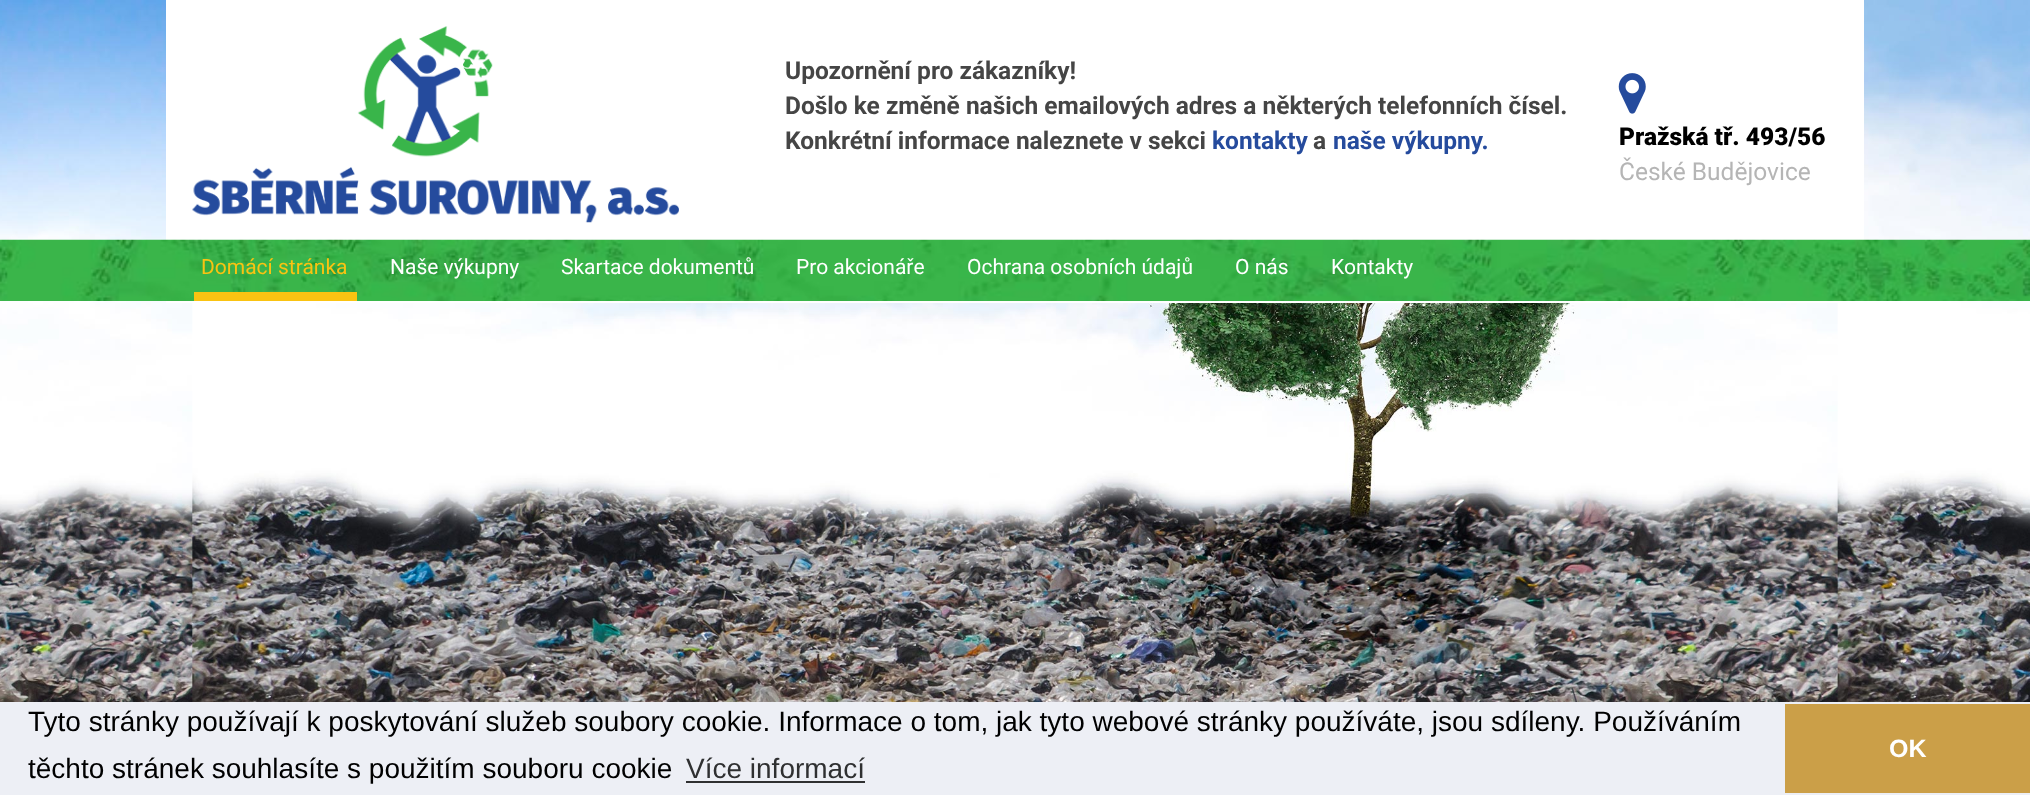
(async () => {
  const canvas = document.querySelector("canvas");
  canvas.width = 2030;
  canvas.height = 795;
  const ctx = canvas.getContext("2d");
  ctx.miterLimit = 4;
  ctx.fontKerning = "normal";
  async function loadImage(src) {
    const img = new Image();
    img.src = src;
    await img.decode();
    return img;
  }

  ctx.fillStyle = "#ffffff";
  ctx.fillRect(0, 0, 2030, 795);
  ctx.drawImage(await loadImage("img/1.png"), 0, 0, 2030, 702);
  ctx.fillRect(166, 0, 1698, 240);
  ctx.drawImage(await loadImage("img/2.png"), 192, 26, 487, 197);
  ctx.drawImage(await loadImage("img/3.png"), 1618, 73, 28, 41);
  ctx.drawImage(await loadImage("img/4.png"), 0, 239, 2030, 62);
  for (const [x, y, w, h, color] of [
    [194, 292, 163, 9, "#fac312"],
    [166, 301, 1672, 2, "#ffffff"],
    [0, 702, 2030, 93, "#edeff5"],
    [686, 781, 179, 2, "#2f3031"],
    [1785, 704, 245, 89, "#cb9f48"],
  ]) {
    ctx.fillStyle = color;
    ctx.fillRect(x, y, w, h);
  }
  ctx.font = "bold 24.5px Roboto";
  ctx.fillStyle = "#454545";
  for (const [text, x, y] of [
    ["Upozornění pro zákazníky!", 785, 79],
    ["Došlo ke změně našich emailových adres a některých telefonních čísel.", 785, 114],
    ["Konkrétní informace naleznete v sekci", 785, 149],
  ]) {
    ctx.fillText(text, x, y);
  }
  ctx.fillStyle = "#254b9d";
  ctx.fillText("kontakty", 1212, 149);
  ctx.fillStyle = "#454545";
  ctx.fillText("a", 1313, 149);
  ctx.fillStyle = "#254b9d";
  ctx.fillText("naše výkupny.", 1333, 149);
  ctx.font = "900 24.5px Roboto";
  ctx.fillStyle = "#000000";
  ctx.fillText("Pražská tř. 493/56", 1619, 145);
  ctx.font = "24.5px Roboto";
  ctx.fillStyle = "#b5b5b5";
  ctx.fillText("České Budějovice", 1619, 180);
  ctx.font = "21px Roboto";
  ctx.fillStyle = "#fac312";
  ctx.fillText("Domácí stránka", 201, 274);
  ctx.fillStyle = "#ffffff";
  for (const [text, x, y] of [
    ["Naše výkupny", 390, 274],
    ["Skartace dokumentů", 561, 274],
    ["Pro akcionáře", 796, 274],
    ["Ochrana osobních údajů", 967, 274],
    ["O nás", 1235, 274],
    ["Kontakty", 1331, 274],
  ]) {
    ctx.fillText(text, x, y);
  }
  ctx.font = "28px Liberation Sans";
  ctx.fillStyle = "#000000";
  ctx.fillText("Tyto stránky používají k poskytování služeb soubory cookie. Informace o tom, jak tyto webové stránky používáte, jsou sdíleny. Používáním", 28, 731);
  ctx.fillText("těchto stránek souhlasíte s použitím souboru cookie", 28, 778);
  ctx.fillStyle = "#2f3031";
  ctx.fillText("Více informací", 686, 778);
  ctx.font = "bold 25px Liberation Sans";
  ctx.fillStyle = "#ffffff";
  ctx.fillText("OK", 1889, 757);
})();
